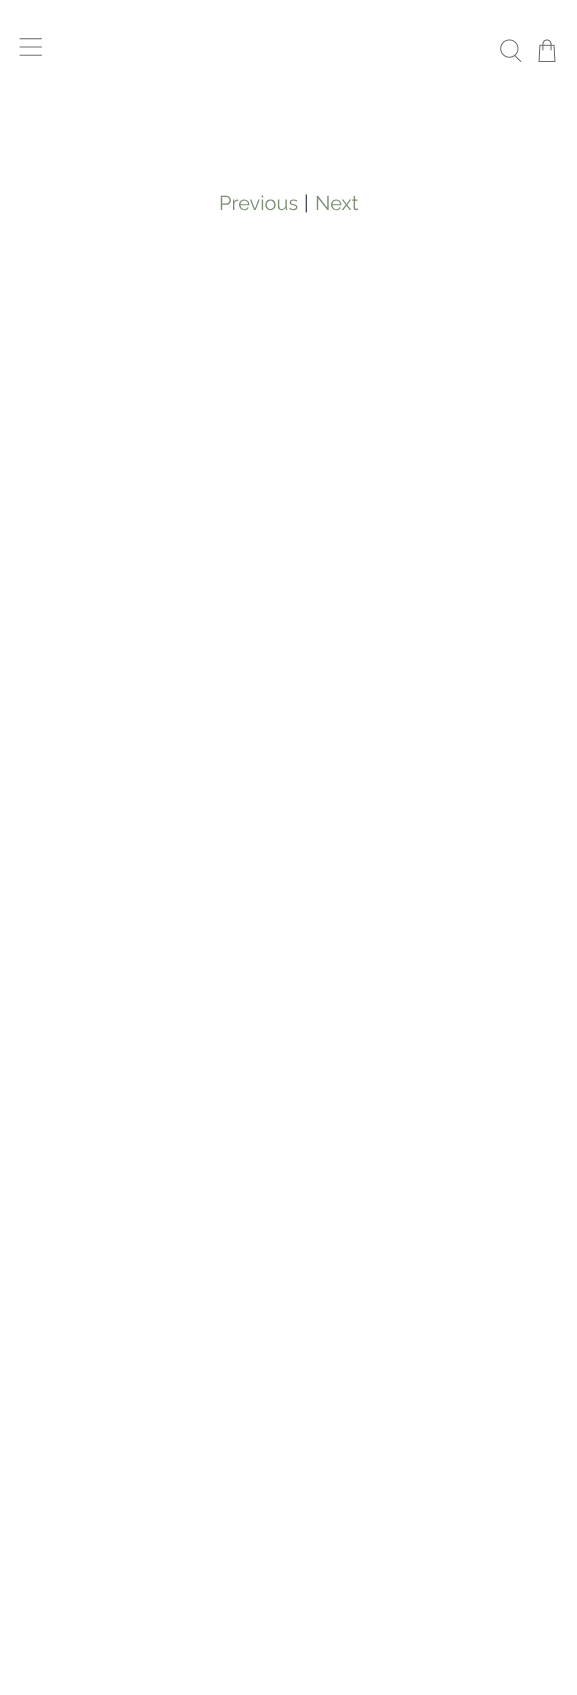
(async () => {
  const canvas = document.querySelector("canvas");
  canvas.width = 577;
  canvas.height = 1695;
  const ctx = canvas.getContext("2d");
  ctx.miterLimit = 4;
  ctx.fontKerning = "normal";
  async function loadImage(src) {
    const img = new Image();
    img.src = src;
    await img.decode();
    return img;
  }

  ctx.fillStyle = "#ffffff";
  ctx.fillRect(0, 0, 577, 1695);
  ctx.drawImage(await loadImage("img/1.png"), 19, 38, 23, 18);
  ctx.drawImage(await loadImage("img/2.png"), 500, 39, 22, 23);
  ctx.drawImage(await loadImage("img/3.png"), 538, 39, 18, 23);
  ctx.font = "20px Raleway";
  ctx.fillStyle = "#7b8f74";
  ctx.fillText("Previous", 219, 210);
  ctx.fillStyle = "#2f3942";
  ctx.fillText("|", 304, 210);
  ctx.fillStyle = "#7b8f74";
  ctx.fillText("Next", 315, 210);
})();
